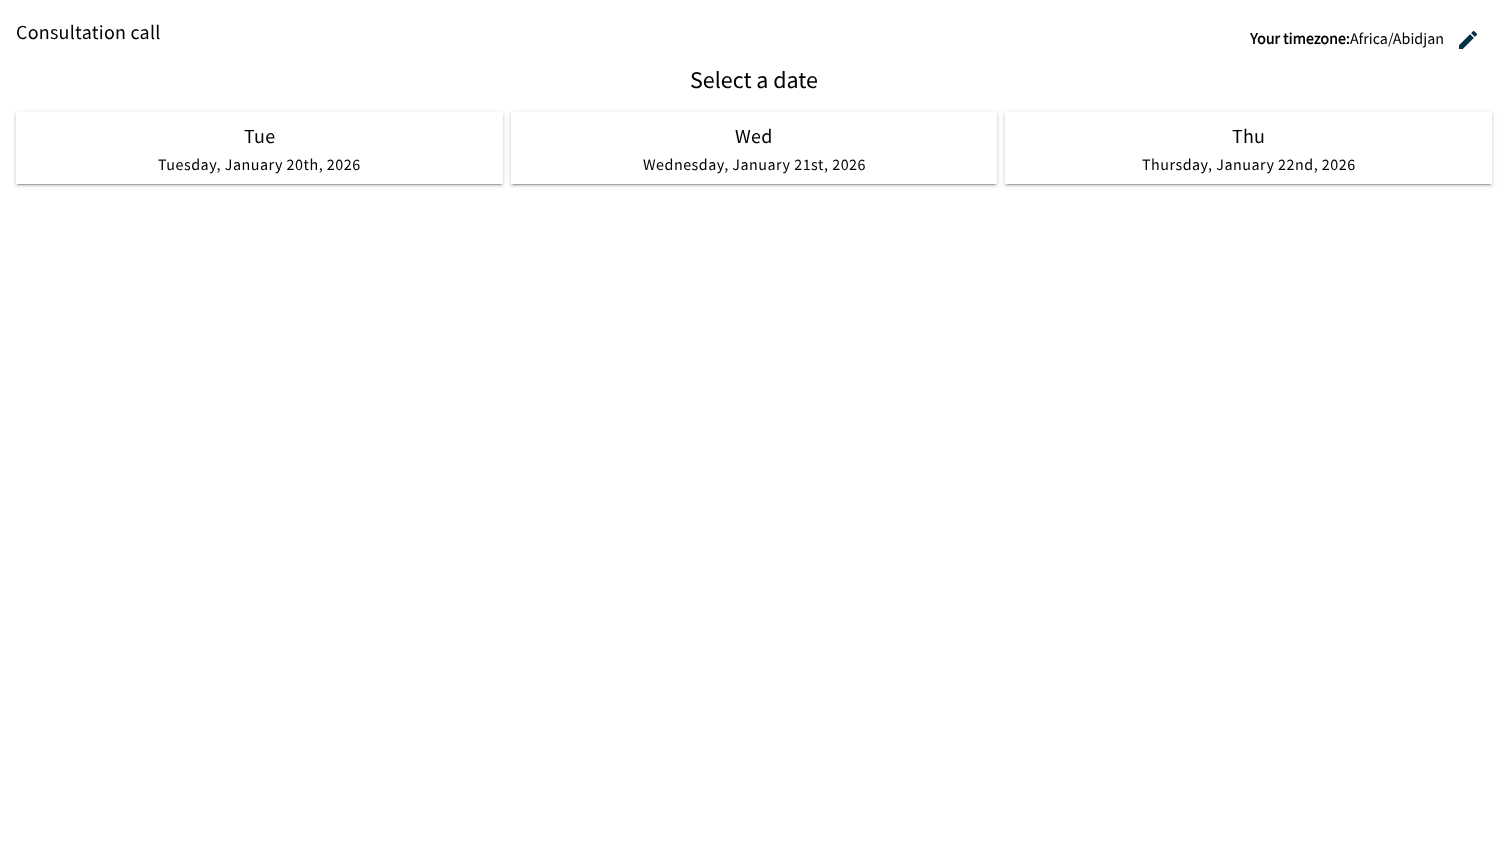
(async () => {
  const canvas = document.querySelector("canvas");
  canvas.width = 1508;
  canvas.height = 849;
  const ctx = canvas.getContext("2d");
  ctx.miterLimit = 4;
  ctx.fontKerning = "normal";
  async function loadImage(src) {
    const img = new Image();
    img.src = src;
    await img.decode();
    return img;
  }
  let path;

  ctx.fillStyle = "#ffffff";
  ctx.fillRect(0, 0, 1508, 849);
  ctx.drawImage(await loadImage("img/1.png"), 1459, 31, 18, 18);
  ctx.save();
  path = new Path2D("M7 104H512V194H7ZM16 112H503V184H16Z");
  ctx.clip(path, "evenodd");
  ctx.fillStyle = "rgba(0, 0, 0, 0.12)";
  ctx.filter = "blur(2.5px)";
  ctx.beginPath();
  ctx.rect(16, 113, 487, 72);
  ctx.fill();
  ctx.filter = "none";
  ctx.restore();
  ctx.save();
  path = new Path2D("M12 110H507V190H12ZM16 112H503V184H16Z");
  ctx.clip(path, "evenodd");
  ctx.fillStyle = "rgba(0, 0, 0, 0.14)";
  ctx.filter = "blur(1px)";
  ctx.beginPath();
  ctx.rect(16, 114, 487, 72);
  ctx.fill();
  ctx.filter = "none";
  ctx.restore();
  ctx.save();
  ctx.beginPath();
  ctx.rect(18, 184, 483, 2);
  ctx.clip();
  ctx.fillStyle = "rgba(0, 0, 0, 0.2)";
  ctx.filter = "blur(0.5px)";
  ctx.beginPath();
  ctx.rect(18, 117, 483, 68);
  ctx.fill();
  ctx.filter = "none";
  ctx.restore();
  ctx.save();
  path = new Path2D("M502 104H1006V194H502ZM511 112H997V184H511Z");
  ctx.clip(path, "evenodd");
  ctx.fillStyle = "rgba(0, 0, 0, 0.12)";
  ctx.filter = "blur(2.5px)";
  ctx.beginPath();
  ctx.rect(511, 113, 486, 72);
  ctx.fill();
  ctx.filter = "none";
  ctx.restore();
  ctx.save();
  path = new Path2D("M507 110H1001V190H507ZM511 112H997V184H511Z");
  ctx.clip(path, "evenodd");
  ctx.fillStyle = "rgba(0, 0, 0, 0.14)";
  ctx.filter = "blur(1px)";
  ctx.beginPath();
  ctx.rect(511, 114, 486, 72);
  ctx.fill();
  ctx.filter = "none";
  ctx.restore();
  ctx.save();
  ctx.beginPath();
  ctx.rect(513, 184, 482, 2);
  ctx.clip();
  ctx.fillStyle = "rgba(0, 0, 0, 0.2)";
  ctx.filter = "blur(0.5px)";
  ctx.beginPath();
  ctx.rect(513, 117, 482, 68);
  ctx.fill();
  ctx.filter = "none";
  ctx.restore();
  ctx.save();
  path = new Path2D("M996 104H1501V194H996ZM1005 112H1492V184H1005Z");
  ctx.clip(path, "evenodd");
  ctx.fillStyle = "rgba(0, 0, 0, 0.12)";
  ctx.filter = "blur(2.5px)";
  ctx.beginPath();
  ctx.rect(1005, 113, 487, 72);
  ctx.fill();
  ctx.filter = "none";
  ctx.restore();
  ctx.save();
  path = new Path2D("M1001 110H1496V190H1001ZM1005 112H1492V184H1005Z");
  ctx.clip(path, "evenodd");
  ctx.fillStyle = "rgba(0, 0, 0, 0.14)";
  ctx.filter = "blur(1px)";
  ctx.beginPath();
  ctx.rect(1005, 114, 487, 72);
  ctx.fill();
  ctx.filter = "none";
  ctx.restore();
  ctx.save();
  ctx.beginPath();
  ctx.rect(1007, 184, 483, 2);
  ctx.clip();
  ctx.fillStyle = "rgba(0, 0, 0, 0.2)";
  ctx.filter = "blur(0.5px)";
  ctx.beginPath();
  ctx.rect(1007, 117, 483, 68);
  ctx.fill();
  ctx.filter = "none";
  ctx.restore();
  ctx.letterSpacing = "0.25px";
  ctx.font = "20px Source Sans Pro";
  ctx.fillStyle = "#000000";
  ctx.fillText("Consultation call", 16, 39);
  ctx.letterSpacing = "0px";
  ctx.font = "bold 16px Source Sans Pro";
  ctx.fillText("Your timezone:", 1250, 44);
  ctx.font = "16px Source Sans Pro";
  ctx.fillText("Africa/Abidjan", 1350, 44);
  ctx.font = "24px Source Sans Pro";
  ctx.fillText("Select a date", 690, 88);
  ctx.letterSpacing = "0.25px";
  ctx.font = "20px Source Sans Pro";
  ctx.fillText("Tue", 244, 143);
  ctx.letterSpacing = "0.5px";
  ctx.font = "16px Source Sans Pro";
  ctx.fillText("Tuesday, January 20th, 2026", 158, 170);
  ctx.letterSpacing = "0.25px";
  ctx.font = "20px Source Sans Pro";
  ctx.fillText("Wed", 735, 143);
  ctx.letterSpacing = "0.5px";
  ctx.font = "16px Source Sans Pro";
  ctx.fillText("Wednesday, January 21st, 2026", 643, 170);
  ctx.letterSpacing = "0.25px";
  ctx.font = "20px Source Sans Pro";
  ctx.fillText("Thu", 1232, 143);
  ctx.letterSpacing = "0.5px";
  ctx.font = "16px Source Sans Pro";
  ctx.fillText("Thursday, January 22nd, 2026", 1142, 170);
})();
